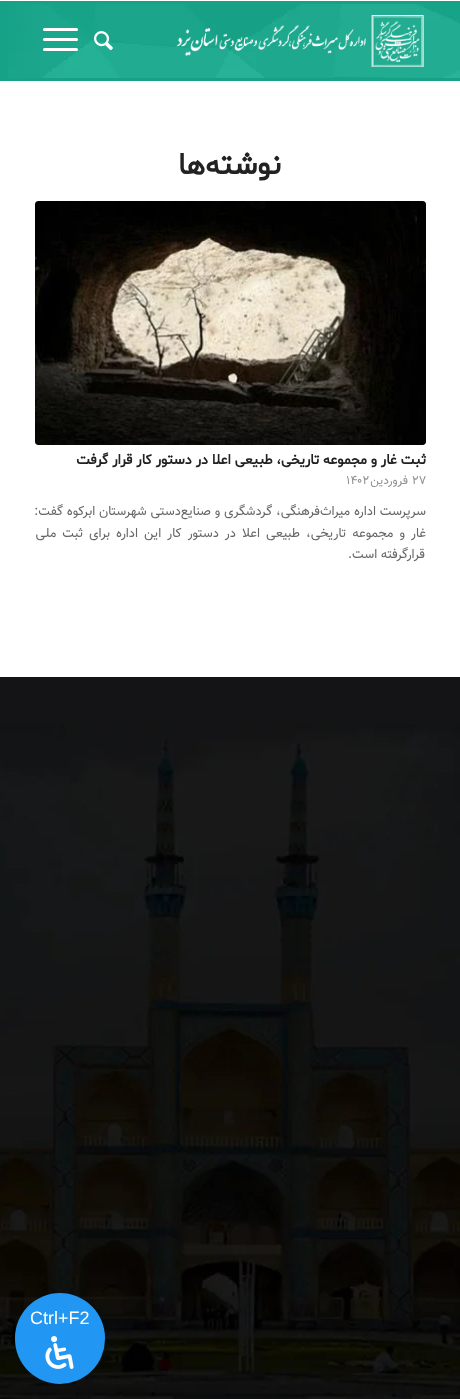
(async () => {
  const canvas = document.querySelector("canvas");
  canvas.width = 460;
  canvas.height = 1399;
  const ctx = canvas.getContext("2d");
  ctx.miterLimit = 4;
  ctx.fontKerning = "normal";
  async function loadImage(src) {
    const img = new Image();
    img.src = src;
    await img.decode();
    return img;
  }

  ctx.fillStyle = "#141416";
  ctx.fillRect(0, 0, 460, 1399);
  ctx.fillStyle = "#ffffff";
  ctx.fillRect(0, 0, 460, 1);
  ctx.fillStyle = "#16a286";
  ctx.fillRect(0, 1, 460, 80);
  ctx.drawImage(await loadImage("img/3.png"), 8, 4, 452, 74);
  ctx.drawImage(await loadImage("img/1.png"), 176, 15, 248, 52);
  ctx.drawImage(await loadImage("img/2.png"), 94, 31, 19, 20);
  ctx.fillStyle = "#ffffff";
  ctx.beginPath();
  ctx.roundRect(43, 38, 35, 3, 1.5);
  ctx.fill();
  ctx.beginPath();
  ctx.roundRect(43, 28, 35, 3, 1.5);
  ctx.fill();
  ctx.beginPath();
  ctx.roundRect(43, 48, 35, 3, 1.5);
  ctx.fill();
  ctx.fillRect(0, 81, 460, 596);
  ctx.fillStyle = "#fcfcfc";
  ctx.beginPath();
  ctx.roundRect(35, 201, 391, 244, 3);
  ctx.fill();
  ctx.drawImage(await loadImage("img/4.png"), 35, 201, 391, 244);
  ctx.drawImage(await loadImage("img/5.png"), 0, 724, 460, 675);
  ctx.fillStyle = "#2196f3";
  ctx.beginPath();
  ctx.roundRect(15, 1293, 90, 91, 45);
  ctx.fill();
  ctx.drawImage(await loadImage("img/6.png"), 45, 1336, 29, 33);
  ctx.direction = "rtl";
  ctx.font = "bold 30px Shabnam";
  ctx.fillStyle = "#222222";
  ctx.fillText("نوشته‌ها", 281, 174);
  ctx.font = "bold 14.3px Shabnam";
  ctx.fillText("ثبت غار و مجموعه تاریخی، طبیعی اعلا در دستور کار قرار گرفت", 426, 464);
  ctx.direction = "ltr";
  ctx.font = "12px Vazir";
  ctx.fillStyle = "#919191";
  ctx.fillText("۲۷", 412, 484);
  ctx.direction = "rtl";
  ctx.fillText("فروردین", 408, 484);
  ctx.direction = "ltr";
  ctx.fillText("۱۴۰۲", 346, 484);
  ctx.wordSpacing = "0.25px";
  ctx.direction = "rtl";
  ctx.font = "13px Vazir";
  ctx.fillStyle = "#666666";
  ctx.fillText("سرپرست اداره میراث‌فرهنگی، گردشگری و صنایع‌دستی شهرستان ابرکوه گفت:", 426, 515);
  ctx.wordSpacing = "2.5px";
  ctx.fillText("غار و مجموعه تاریخی، طبیعی اعلا در دستور کار این اداره برای ثبت ملی", 426, 537);
  ctx.wordSpacing = "0px";
  ctx.fillText("قرارگرفته است.", 425, 558);
  ctx.direction = "ltr";
  ctx.font = "18px Liberation Sans";
  ctx.fillStyle = "#ffffff";
  ctx.fillText("Ctrl+F2", 30, 1324);
})();
